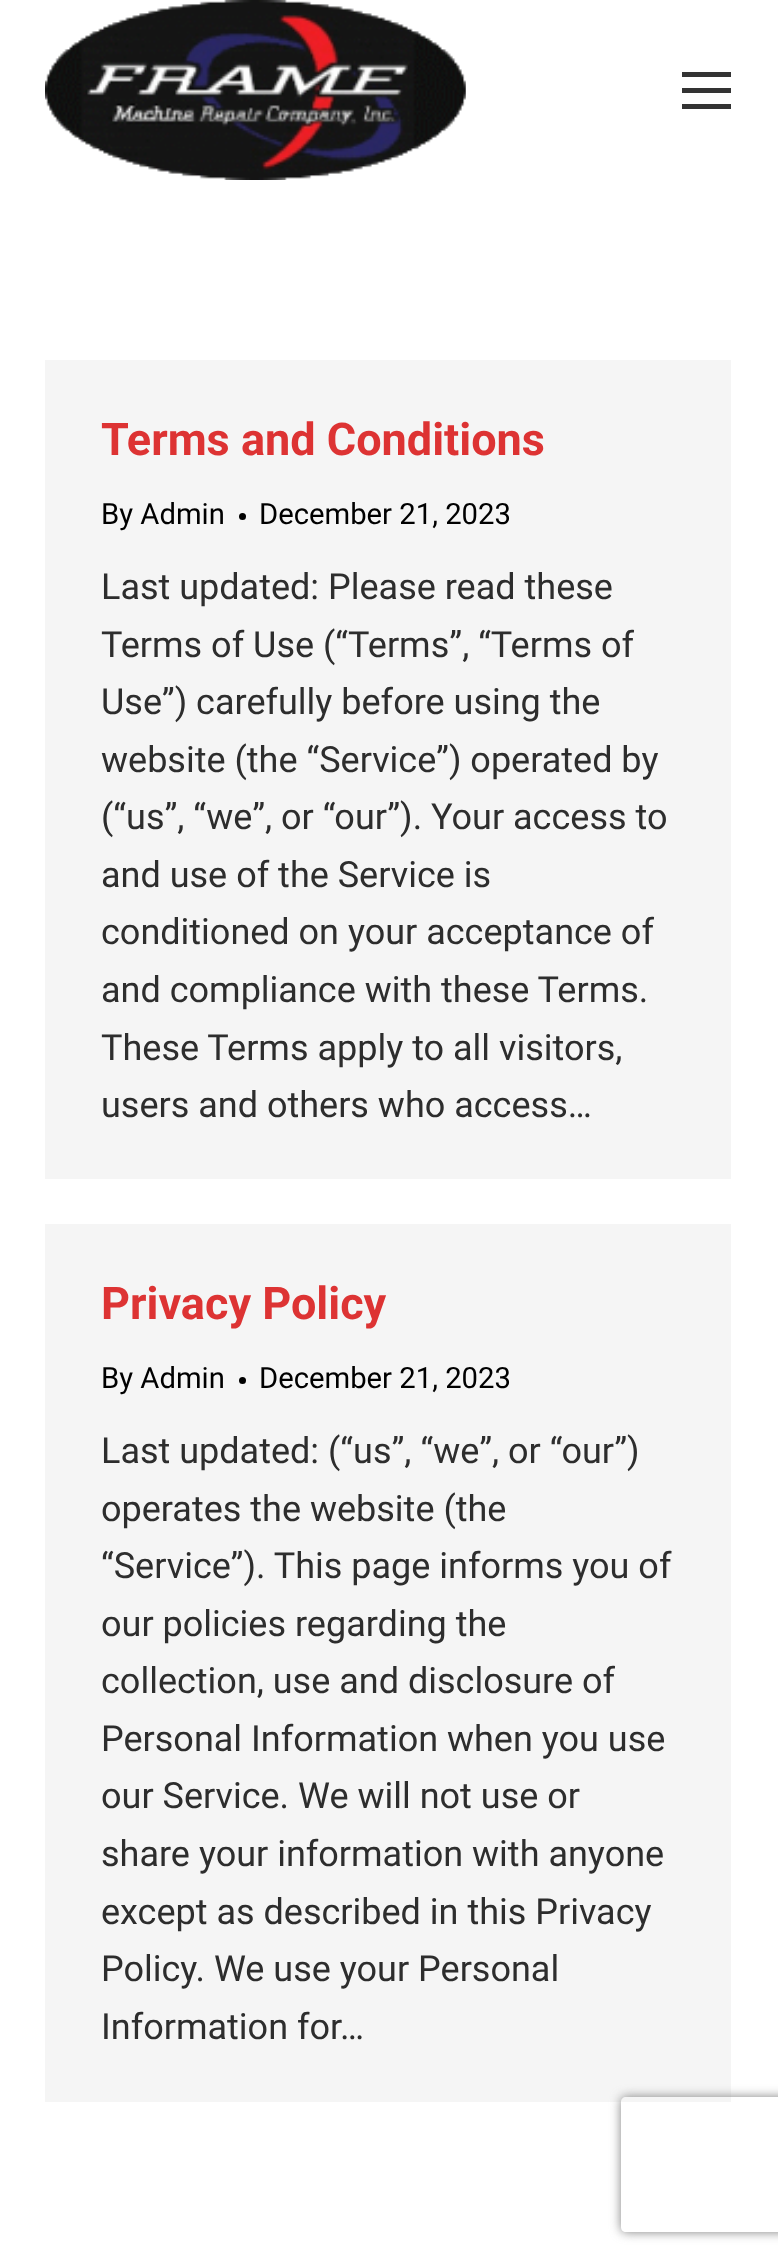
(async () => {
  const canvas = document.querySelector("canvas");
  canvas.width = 778;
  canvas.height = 2262;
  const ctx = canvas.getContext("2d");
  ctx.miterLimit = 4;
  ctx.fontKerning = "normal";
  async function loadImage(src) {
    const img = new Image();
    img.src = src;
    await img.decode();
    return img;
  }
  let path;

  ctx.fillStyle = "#ffffff";
  ctx.fillRect(0, 0, 778, 2262);
  ctx.drawImage(await loadImage("img/1.png"), 45, 0, 421, 180);
  for (const [x, y, w, h, color] of [
    [682, 72, 49, 5, "#333333"],
    [682, 88, 49, 5, "#333333"],
    [682, 104, 49, 5, "#333333"],
    [45, 360, 686, 819, "#f5f5f5"],
  ]) {
    ctx.fillStyle = color;
    ctx.fillRect(x, y, w, h);
  }
  ctx.fillStyle = "#000000";
  ctx.beginPath();
  ctx.arc(242.5, 516.5, 3.5, 0, Math.PI * 2);
  ctx.fill();
  ctx.fillStyle = "#f5f5f5";
  ctx.fillRect(45, 1224, 686, 878);
  ctx.fillStyle = "#000000";
  ctx.beginPath();
  ctx.arc(242.5, 1380.5, 3.5, 0, Math.PI * 2);
  ctx.fill();
  ctx.save();
  path = new Path2D("M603 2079H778V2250H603ZM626 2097H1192C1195 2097 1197 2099 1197 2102V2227C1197 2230 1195 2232 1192 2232H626C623 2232 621 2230 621 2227V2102C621 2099 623 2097 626 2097Z");
  ctx.clip(path, "evenodd");
  ctx.fillStyle = "#808080";
  ctx.filter = "blur(5.5px)";
  ctx.beginPath();
  ctx.roundRect(621, 2097, 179, 135, 5);
  ctx.fill();
  ctx.filter = "none";
  ctx.restore();
  ctx.font = "bold 45px Roboto";
  ctx.fillStyle = "#dd3333";
  ctx.fillText("Terms and Conditions", 101, 455);
  ctx.font = "29.25px Roboto";
  ctx.fillStyle = "#000000";
  ctx.fillText("By Admin", 101, 524);
  ctx.fillText("December 21, 2023", 259, 524);
  ctx.font = "36px Roboto";
  ctx.fillStyle = "#2d2d2d";
  for (const [text, x, y] of [
    ["Last updated: Please read these", 101, 599],
    ["Terms of Use (“Terms”, “Terms of", 101, 657],
    ["Use”) carefully before using the", 101, 714],
    ["website (the “Service”) operated by", 101, 772],
    ["(“us”, “we”, or “our”). Your access to", 101, 829],
    ["and use of the Service is", 101, 887],
    ["conditioned on your acceptance of", 101, 944],
    ["and compliance with these Terms.", 101, 1002],
    ["These Terms apply to all visitors,", 101, 1060],
    ["users and others who access…", 101, 1117],
  ]) {
    ctx.fillText(text, x, y);
  }
  ctx.font = "bold 45px Roboto";
  ctx.fillStyle = "#dd3333";
  ctx.fillText("Privacy Policy", 101, 1319);
  ctx.font = "29.25px Roboto";
  ctx.fillStyle = "#000000";
  ctx.fillText("By Admin", 101, 1388);
  ctx.fillText("December 21, 2023", 259, 1388);
  ctx.font = "36px Roboto";
  ctx.fillStyle = "#2d2d2d";
  for (const [text, x, y] of [
    ["Last updated: (“us”, “we”, or “our”)", 101, 1463],
    ["operates the website (the", 101, 1521],
    ["“Service”). This page informs you of", 101, 1578],
    ["our policies regarding the", 101, 1636],
    ["collection, use and disclosure of", 101, 1693],
    ["Personal Information when you use", 101, 1751],
    ["our Service. We will not use or", 101, 1808],
    ["share your information with anyone", 101, 1866],
    ["except as described in this Privacy", 101, 1924],
    ["Policy. We use your Personal", 101, 1981],
    ["Information for…", 101, 2039],
  ]) {
    ctx.fillText(text, x, y);
  }
})();
